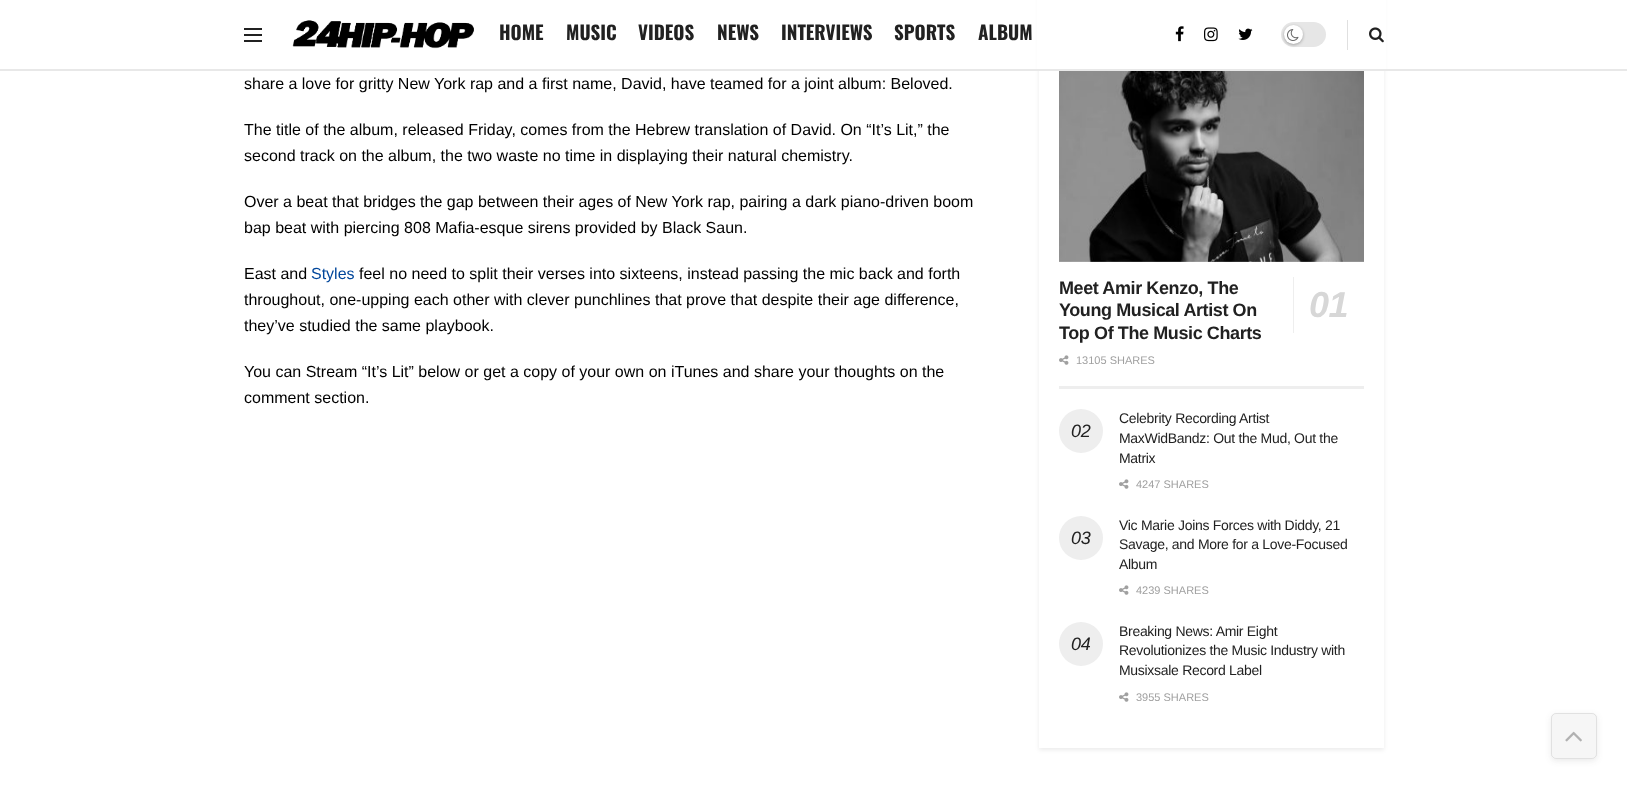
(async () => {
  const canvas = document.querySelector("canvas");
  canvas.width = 1627;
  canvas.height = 789;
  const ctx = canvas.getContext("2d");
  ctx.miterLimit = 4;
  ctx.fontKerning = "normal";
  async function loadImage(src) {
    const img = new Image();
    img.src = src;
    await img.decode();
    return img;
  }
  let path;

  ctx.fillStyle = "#ffffff";
  ctx.fillRect(0, 0, 1627, 789);
  ctx.save();
  path = new Path2D("M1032 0H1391V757H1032ZM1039-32H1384V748H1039Z");
  ctx.clip(path, "evenodd");
  ctx.fillStyle = "rgba(0, 0, 0, 0.08)";
  ctx.filter = "blur(2px)";
  ctx.beginPath();
  ctx.rect(1039, -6, 345, 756);
  ctx.fill();
  ctx.filter = "none";
  ctx.restore();
  for (const [x, y, w, h, color] of [
    [1037, 0, 349, 69, "#ffffff"],
    [0, 69, 1627, 2, "#e8e8e8"],
    [244, 28, 18, 2, "#212121"],
    [244, 34, 18, 2, "#212121"],
    [244, 40, 18, 2, "#212121"],
  ]) {
    ctx.fillStyle = color;
    ctx.fillRect(x, y, w, h);
  }
  ctx.drawImage(await loadImage("img/1.png"), 292, 20, 182, 29);
  ctx.drawImage(await loadImage("img/2.png"), 1175, 26, 9, 16);
  ctx.drawImage(await loadImage("img/3.png"), 1204, 27, 14, 15);
  ctx.drawImage(await loadImage("img/4.png"), 1238, 28, 15, 12);
  ctx.fillStyle = "#e6e6e6";
  ctx.beginPath();
  ctx.roundRect(1281, 22, 45, 25, 12.5);
  ctx.fill();
  ctx.fillStyle = "rgba(0, 0, 0, 0.3)";
  ctx.filter = "blur(1.5px)";
  ctx.beginPath();
  ctx.roundRect(1284, 26, 19, 19, 9.5);
  ctx.fill();
  ctx.filter = "none";
  ctx.fillStyle = "#ffffff";
  ctx.beginPath();
  ctx.arc(1293.5, 34.5, 9.5, 0, Math.PI * 2);
  ctx.fill();
  ctx.drawImage(await loadImage("img/5.png"), 1287, 29, 12, 12);
  ctx.fillStyle = "#e0e0e0";
  ctx.fillRect(1347, 20, 1, 30);
  ctx.drawImage(await loadImage("img/6.png"), 1369, 27, 15, 16);
  ctx.fillStyle = "#eeeeee";
  ctx.fillRect(1059, 386, 305, 3);
  ctx.drawImage(await loadImage("img/7.png"), 1059, 71, 305, 191);
  ctx.fillRect(1293, 277, 1, 56);
  ctx.drawImage(await loadImage("img/8.png"), 1059, 355, 10, 10);
  ctx.beginPath();
  ctx.arc(1081, 431, 22, 0, Math.PI * 2);
  ctx.fill();
  ctx.drawImage(await loadImage("img/8.png"), 1119, 479, 10, 10);
  ctx.beginPath();
  ctx.arc(1081, 538, 22, 0, Math.PI * 2);
  ctx.fill();
  ctx.drawImage(await loadImage("img/8.png"), 1119, 585, 10, 10);
  ctx.beginPath();
  ctx.arc(1081, 644, 22, 0, Math.PI * 2);
  ctx.fill();
  ctx.drawImage(await loadImage("img/8.png"), 1119, 692, 10, 10);
  ctx.save();
  path = new Path2D("M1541 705H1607V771H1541ZM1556 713H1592C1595 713 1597 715 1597 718V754C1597 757 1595 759 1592 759H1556C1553 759 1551 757 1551 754V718C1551 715 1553 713 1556 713Z");
  ctx.clip(path, "evenodd");
  ctx.fillStyle = "rgba(51, 51, 51, 0.1)";
  ctx.filter = "blur(3px)";
  ctx.beginPath();
  ctx.roundRect(1551, 715, 46, 46, 5);
  ctx.fill();
  ctx.filter = "none";
  ctx.restore();
  ctx.fillStyle = "rgba(195, 195, 195, 0.15)";
  ctx.beginPath();
  ctx.roundRect(1551, 713, 46, 46, 5);
  ctx.fill();
  ctx.beginPath();
  ctx.roundRect(1551.5, 713.5, 45, 45, 4.5);
  ctx.strokeStyle = "rgba(51, 51, 51, 0.11)";
  ctx.stroke();
  ctx.drawImage(await loadImage("img/9.png"), 1565, 731, 17, 11);
  ctx.font = "bold 19px Oswald";
  ctx.fillStyle = "#212121";
  for (const [text, x, y] of [
    ["HOME", 499, 40],
    ["MUSIC", 566, 40],
    ["VIDEOS", 638, 40],
    ["NEWS", 717, 40],
    ["INTERVIEWS", 781, 40],
    ["SPORTS", 894, 40],
    ["ALBUM", 978, 40],
  ]) {
    ctx.fillText(text, x, y);
  }
  ctx.font = "16px Liberation Sans";
  ctx.fillStyle = "#000000";
  for (const [text, x, y] of [
    ["share a love for gritty New York rap and a first name, David, have teamed for a joint album: Beloved.", 244, 89],
    ["The title of the album, released Friday, comes from the Hebrew translation of David. On “It’s Lit,” the", 244, 135],
    ["second track on the album, the two waste no time in displaying their natural chemistry.", 244, 161],
    ["Over a beat that bridges the gap between their ages of New York rap, pairing a dark piano-driven boom", 244, 207],
    ["bap beat with piercing 808 Mafia-esque sirens provided by Black Saun.", 244, 233],
    ["East and", 244, 279],
  ]) {
    ctx.fillText(text, x, y);
  }
  ctx.fillStyle = "#00469b";
  ctx.fillText("Styles", 311, 279);
  ctx.fillStyle = "#000000";
  for (const [text, x, y] of [
    ["feel no need to split their verses into sixteens, instead passing the mic back and forth", 359, 279],
    ["throughout, one-upping each other with clever punchlines that prove that despite their age difference,", 244, 305],
    ["they’ve studied the same playbook.", 244, 331],
    ["You can Stream “It’s Lit” below or get a copy of your own on iTunes and share your thoughts on the", 244, 377],
    ["comment section.", 244, 403],
  ]) {
    ctx.fillText(text, x, y);
  }
  ctx.letterSpacing = "-0.4px";
  ctx.font = "bold 18px Liberation Sans";
  ctx.fillStyle = "#212121";
  ctx.fillText("Meet Amir Kenzo, The", 1059, 294);
  ctx.fillText("Young Musical Artist On", 1059, 316);
  ctx.font = "italic bold 36px Liberation Sans";
  ctx.fillStyle = "#d7d7d7";
  ctx.fillText("01", 1309, 317);
  ctx.font = "bold 18px Liberation Sans";
  ctx.fillStyle = "#212121";
  ctx.fillText("Top Of The Music Charts", 1059, 339);
  ctx.letterSpacing = "0px";
  ctx.font = "11px Liberation Sans";
  ctx.fillStyle = "#a0a0a0";
  ctx.fillText("13105 SHARES", 1076, 364);
  ctx.letterSpacing = "-0.3px";
  ctx.font = "14px Liberation Sans";
  ctx.fillStyle = "#212121";
  ctx.fillText("Celebrity Recording Artist", 1119, 423);
  ctx.font = "italic 18px Liberation Sans";
  ctx.fillText("02", 1071, 437);
  ctx.font = "14px Liberation Sans";
  ctx.fillText("MaxWidBandz: Out the Mud, Out the", 1119, 443);
  ctx.fillText("Matrix", 1119, 463);
  ctx.letterSpacing = "0px";
  ctx.font = "11px Liberation Sans";
  ctx.fillStyle = "#a0a0a0";
  ctx.fillText("4247 SHARES", 1136, 488);
  ctx.letterSpacing = "-0.3px";
  ctx.font = "14px Liberation Sans";
  ctx.fillStyle = "#212121";
  ctx.fillText("Vic Marie Joins Forces with Diddy, 21", 1119, 530);
  ctx.font = "italic 18px Liberation Sans";
  ctx.fillText("03", 1071, 544);
  ctx.font = "14px Liberation Sans";
  ctx.fillText("Savage, and More for a Love-Focused", 1119, 549);
  ctx.fillText("Album", 1119, 569);
  ctx.letterSpacing = "0px";
  ctx.font = "11px Liberation Sans";
  ctx.fillStyle = "#a0a0a0";
  ctx.fillText("4239 SHARES", 1136, 594);
  ctx.letterSpacing = "-0.3px";
  ctx.font = "14px Liberation Sans";
  ctx.fillStyle = "#212121";
  ctx.fillText("Breaking News: Amir Eight", 1119, 636);
  ctx.font = "italic 18px Liberation Sans";
  ctx.fillText("04", 1071, 650);
  ctx.font = "14px Liberation Sans";
  ctx.fillText("Revolutionizes the Music Industry with", 1119, 655);
  ctx.fillText("Musixsale Record Label", 1119, 675);
  ctx.letterSpacing = "0px";
  ctx.font = "11px Liberation Sans";
  ctx.fillStyle = "#a0a0a0";
  ctx.fillText("3955 SHARES", 1136, 701);
})();
